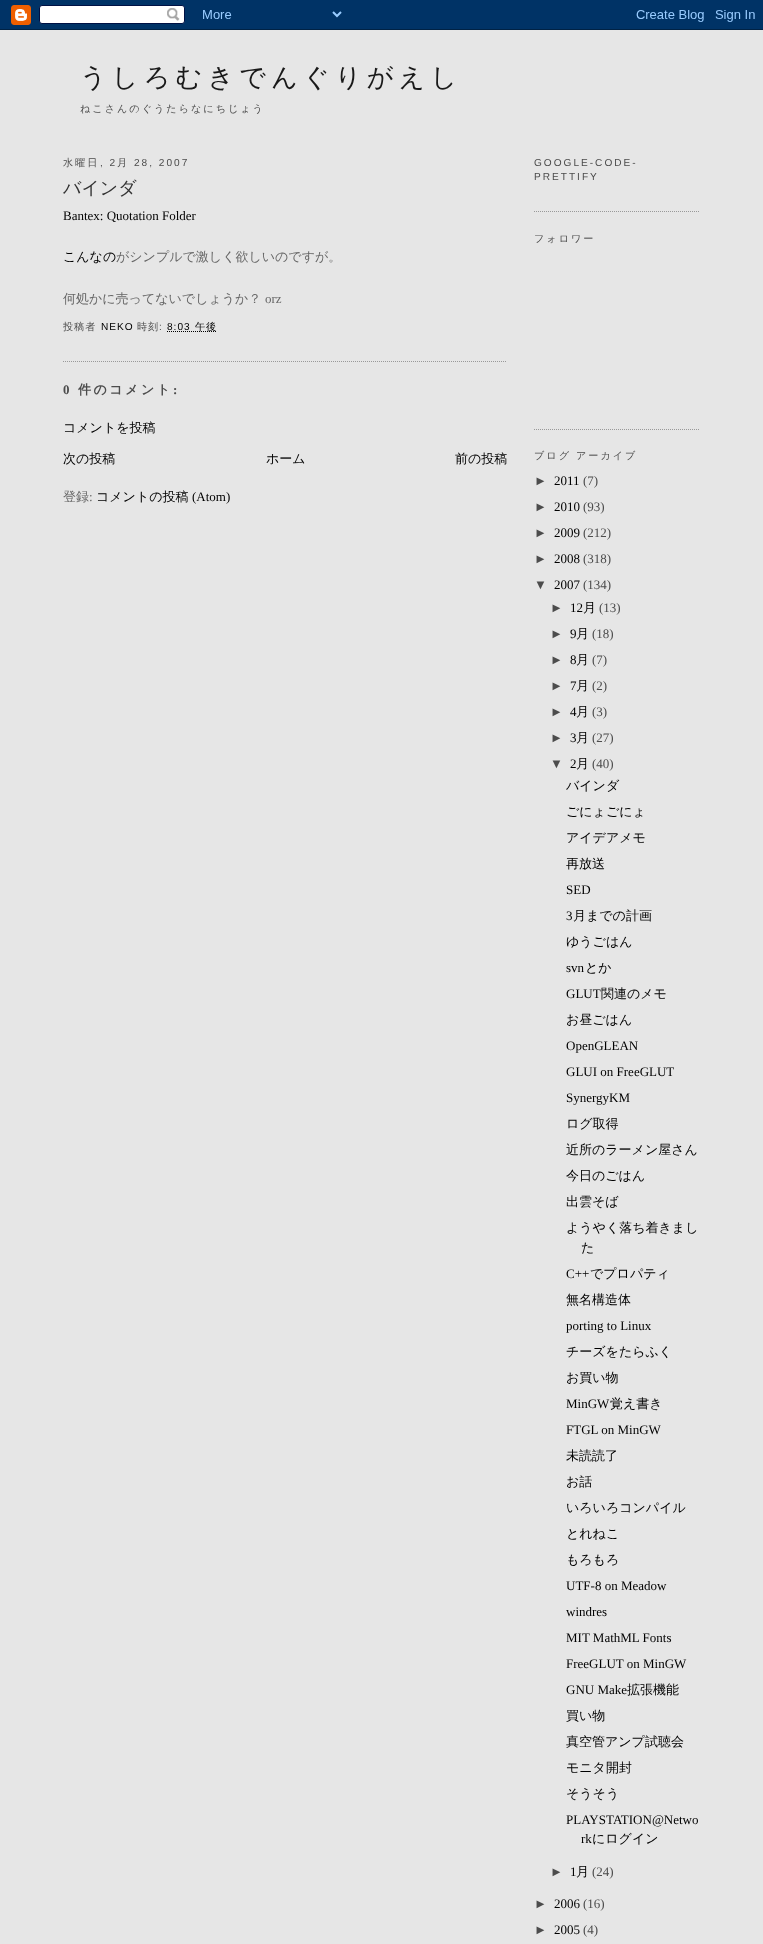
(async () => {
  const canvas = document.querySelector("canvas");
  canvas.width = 763;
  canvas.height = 1944;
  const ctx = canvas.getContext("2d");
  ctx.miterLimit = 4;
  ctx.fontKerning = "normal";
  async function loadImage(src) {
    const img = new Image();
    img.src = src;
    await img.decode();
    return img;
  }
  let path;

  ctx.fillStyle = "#e6e6e6";
  ctx.fillRect(0, 0, 763, 1944);
  ctx.drawImage(await loadImage("img/1.png"), 0, 0, 763, 30);
  path = new Path2D("M63 361.5H507");
  ctx.strokeStyle = "#999999";
  ctx.setLineDash([1, 1]);
  ctx.stroke(path);
  path = new Path2D("M167 331.5H217");
  ctx.strokeStyle = "#000000";
  ctx.stroke(path);
  path = new Path2D("M534 211.5H700");
  ctx.strokeStyle = "#999999";
  ctx.stroke(path);
  path = new Path2D("M534 429.5H700");
  ctx.stroke(path);
  ctx.letterSpacing = "5.25px";
  ctx.font = "500 26px WenQuanYi Zen Hei";
  ctx.fillStyle = "#191919";
  ctx.fillText("うしろむきでんぐりがえし", 80, 86);
  ctx.letterSpacing = "2px";
  ctx.font = "500 10.1px WenQuanYi Zen Hei";
  ctx.fillStyle = "#4c4c4c";
  ctx.fillText("ねこさんのぐうたらなにちじょう", 80, 112);
  ctx.fillText("水曜日", 63, 166);
  ctx.font = "10.1px Liberation Sans";
  ctx.fillText(", 2", 100, 166);
  ctx.font = "500 10.1px WenQuanYi Zen Hei";
  ctx.fillText("月", 117, 166);
  ctx.font = "10.1px Liberation Sans";
  ctx.fillText("28, 2007", 134, 166);
  ctx.letterSpacing = "0px";
  ctx.font = "500 18px WenQuanYi Zen Hei";
  ctx.fillStyle = "#333333";
  ctx.fillText("バインダ", 63, 194);
  ctx.font = "13px Liberation Serif";
  ctx.fillStyle = "#000000";
  ctx.fillText("Bantex: Quotation Folder", 63, 220);
  ctx.font = "500 13px WenQuanYi Zen Hei";
  ctx.fillText("こんなの", 63, 261);
  ctx.fillStyle = "#666666";
  ctx.fillText("がシンプルで激しく欲しいのですが。", 116, 261);
  ctx.fillText("何処かに売ってないでしょうか？", 63, 303);
  ctx.font = "13px Liberation Serif";
  ctx.fillText("orz", 265, 303);
  ctx.letterSpacing = "1px";
  ctx.font = "500 10.1px WenQuanYi Zen Hei";
  ctx.fillStyle = "#4c4c4c";
  ctx.fillText("投稿者", 63, 330);
  ctx.font = "10.1px Liberation Sans";
  ctx.fillStyle = "#000000";
  ctx.fillText("NEKO", 101, 330);
  ctx.font = "500 10.1px WenQuanYi Zen Hei";
  ctx.fillStyle = "#4c4c4c";
  ctx.fillText("時刻", 137, 330);
  ctx.font = "10.1px Liberation Sans";
  ctx.fillText(":", 159, 330);
  ctx.fillStyle = "#000000";
  ctx.fillText("8:03", 167, 330);
  ctx.font = "500 10.1px WenQuanYi Zen Hei";
  ctx.fillText("午後", 195, 330);
  ctx.letterSpacing = "2.5px";
  ctx.font = "bold 13px Liberation Serif";
  ctx.fillStyle = "#4c4c4c";
  ctx.fillText("0", 63, 394);
  ctx.font = "bold 13px WenQuanYi Zen Hei";
  ctx.fillText("件のコメント", 78, 394);
  ctx.font = "bold 13px Liberation Serif";
  ctx.fillText(":", 173, 394);
  ctx.letterSpacing = "0px";
  ctx.font = "500 13px WenQuanYi Zen Hei";
  ctx.fillStyle = "#000000";
  for (const [text, x, y] of [
    ["コメントを投稿", 63, 432],
    ["次の投稿", 63, 463],
    ["ホーム", 266, 463],
    ["前の投稿", 455, 463],
  ]) {
    ctx.fillText(text, x, y);
  }
  ctx.fillStyle = "#666666";
  ctx.fillText("登録", 63, 501);
  ctx.font = "13px Liberation Serif";
  ctx.fillText(":", 89, 501);
  ctx.font = "500 13px WenQuanYi Zen Hei";
  ctx.fillStyle = "#000000";
  ctx.fillText("コメントの投稿", 96, 501);
  ctx.font = "13px Liberation Serif";
  ctx.fillText("(Atom)", 192, 501);
  ctx.letterSpacing = "2px";
  ctx.font = "10.1px Liberation Sans";
  ctx.fillStyle = "#4c4c4c";
  ctx.fillText("GOOGLE-CODE-", 534, 166);
  ctx.fillText("PRETTIFY", 534, 180);
  ctx.font = "500 10.1px WenQuanYi Zen Hei";
  ctx.fillText("フォロワー", 534, 242);
  ctx.fillText("ブログ アーカイブ", 534, 459);
  ctx.letterSpacing = "0px";
  ctx.font = "13px Liberation Sans";
  ctx.fillText("►", 534, 485);
  ctx.font = "13px Liberation Serif";
  ctx.fillStyle = "#000000";
  ctx.fillText("2011", 554, 485);
  ctx.fillStyle = "#4c4c4c";
  ctx.fillText("(7)", 583, 485);
  ctx.font = "13px Liberation Sans";
  ctx.fillText("►", 534, 511);
  ctx.font = "13px Liberation Serif";
  ctx.fillStyle = "#000000";
  ctx.fillText("2010", 554, 511);
  ctx.fillStyle = "#4c4c4c";
  ctx.fillText("(93)", 583, 511);
  ctx.font = "13px Liberation Sans";
  ctx.fillText("►", 534, 537);
  ctx.font = "13px Liberation Serif";
  ctx.fillStyle = "#000000";
  ctx.fillText("2009", 554, 537);
  ctx.fillStyle = "#4c4c4c";
  ctx.fillText("(212)", 583, 537);
  ctx.font = "13px Liberation Sans";
  ctx.fillText("►", 534, 563);
  ctx.font = "13px Liberation Serif";
  ctx.fillStyle = "#000000";
  ctx.fillText("2008", 554, 563);
  ctx.fillStyle = "#4c4c4c";
  ctx.fillText("(318)", 583, 563);
  ctx.font = "13px Liberation Sans";
  ctx.fillText("▼", 534, 589);
  ctx.font = "13px Liberation Serif";
  ctx.fillStyle = "#000000";
  ctx.fillText("2007", 554, 589);
  ctx.fillStyle = "#4c4c4c";
  ctx.fillText("(134)", 583, 589);
  ctx.font = "13px Liberation Sans";
  ctx.fillText("►", 550, 612);
  ctx.font = "13px Liberation Serif";
  ctx.fillStyle = "#000000";
  ctx.fillText("12", 570, 612);
  ctx.font = "500 13px WenQuanYi Zen Hei";
  ctx.fillText("月", 583, 612);
  ctx.font = "13px Liberation Serif";
  ctx.fillStyle = "#4c4c4c";
  ctx.fillText("(13)", 599, 612);
  ctx.font = "13px Liberation Sans";
  ctx.fillText("►", 550, 638);
  ctx.font = "13px Liberation Serif";
  ctx.fillStyle = "#000000";
  ctx.fillText("9", 570, 638);
  ctx.font = "500 13px WenQuanYi Zen Hei";
  ctx.fillText("月", 576, 638);
  ctx.font = "13px Liberation Serif";
  ctx.fillStyle = "#4c4c4c";
  ctx.fillText("(18)", 592, 638);
  ctx.font = "13px Liberation Sans";
  ctx.fillText("►", 550, 664);
  ctx.font = "13px Liberation Serif";
  ctx.fillStyle = "#000000";
  ctx.fillText("8", 570, 664);
  ctx.font = "500 13px WenQuanYi Zen Hei";
  ctx.fillText("月", 576, 664);
  ctx.font = "13px Liberation Serif";
  ctx.fillStyle = "#4c4c4c";
  ctx.fillText("(7)", 592, 664);
  ctx.font = "13px Liberation Sans";
  ctx.fillText("►", 550, 690);
  ctx.font = "13px Liberation Serif";
  ctx.fillStyle = "#000000";
  ctx.fillText("7", 570, 690);
  ctx.font = "500 13px WenQuanYi Zen Hei";
  ctx.fillText("月", 576, 690);
  ctx.font = "13px Liberation Serif";
  ctx.fillStyle = "#4c4c4c";
  ctx.fillText("(2)", 592, 690);
  ctx.font = "13px Liberation Sans";
  ctx.fillText("►", 550, 716);
  ctx.font = "13px Liberation Serif";
  ctx.fillStyle = "#000000";
  ctx.fillText("4", 570, 716);
  ctx.font = "500 13px WenQuanYi Zen Hei";
  ctx.fillText("月", 576, 716);
  ctx.font = "13px Liberation Serif";
  ctx.fillStyle = "#4c4c4c";
  ctx.fillText("(3)", 592, 716);
  ctx.font = "13px Liberation Sans";
  ctx.fillText("►", 550, 742);
  ctx.font = "13px Liberation Serif";
  ctx.fillStyle = "#000000";
  ctx.fillText("3", 570, 742);
  ctx.font = "500 13px WenQuanYi Zen Hei";
  ctx.fillText("月", 576, 742);
  ctx.font = "13px Liberation Serif";
  ctx.fillStyle = "#4c4c4c";
  ctx.fillText("(27)", 592, 742);
  ctx.font = "13px Liberation Sans";
  ctx.fillText("▼", 550, 768);
  ctx.font = "13px Liberation Serif";
  ctx.fillStyle = "#000000";
  ctx.fillText("2", 570, 768);
  ctx.font = "500 13px WenQuanYi Zen Hei";
  ctx.fillText("月", 576, 768);
  ctx.font = "13px Liberation Serif";
  ctx.fillStyle = "#4c4c4c";
  ctx.fillText("(40)", 592, 768);
  ctx.font = "500 13px WenQuanYi Zen Hei";
  ctx.fillStyle = "#000000";
  for (const [text, x, y] of [
    ["バインダ", 566, 790],
    ["ごにょごにょ", 566, 816],
    ["アイデアメモ", 566, 842],
    ["再放送", 566, 868],
  ]) {
    ctx.fillText(text, x, y);
  }
  ctx.font = "13px Liberation Serif";
  ctx.fillText("SED", 566, 894);
  ctx.fillText("3", 566, 920);
  ctx.font = "500 13px WenQuanYi Zen Hei";
  ctx.fillText("月までの計画", 573, 920);
  ctx.fillText("ゆうごはん", 566, 946);
  ctx.font = "13px Liberation Serif";
  ctx.fillText("svn", 566, 972);
  ctx.font = "500 13px WenQuanYi Zen Hei";
  ctx.fillText("とか", 585, 972);
  ctx.font = "13px Liberation Serif";
  ctx.fillText("GLUT", 566, 998);
  ctx.font = "500 13px WenQuanYi Zen Hei";
  ctx.fillText("関連のメモ", 601, 998);
  ctx.fillText("お昼ごはん", 566, 1024);
  ctx.font = "13px Liberation Serif";
  for (const [text, x, y] of [
    ["OpenGLEAN", 566, 1050],
    ["GLUI on FreeGLUT", 566, 1076],
    ["SynergyKM", 566, 1102],
  ]) {
    ctx.fillText(text, x, y);
  }
  ctx.font = "500 13px WenQuanYi Zen Hei";
  for (const [text, x, y] of [
    ["ログ取得", 566, 1128],
    ["近所のラーメン屋さん", 566, 1154],
    ["今日のごはん", 566, 1180],
    ["出雲そば", 566, 1206],
    ["ようやく落ち着きまし", 566, 1232],
    ["た", 581, 1252],
  ]) {
    ctx.fillText(text, x, y);
  }
  ctx.font = "13px Liberation Serif";
  ctx.fillText("C++", 566, 1278);
  ctx.font = "500 13px WenQuanYi Zen Hei";
  ctx.fillText("でプロパティ", 590, 1278);
  ctx.fillText("無名構造体", 566, 1304);
  ctx.font = "13px Liberation Serif";
  ctx.fillText("porting to Linux", 566, 1330);
  ctx.font = "500 13px WenQuanYi Zen Hei";
  ctx.fillText("チーズをたらふく", 566, 1356);
  ctx.fillText("お買い物", 566, 1382);
  ctx.font = "13px Liberation Serif";
  ctx.fillText("MinGW", 566, 1408);
  ctx.font = "500 13px WenQuanYi Zen Hei";
  ctx.fillText("覚え書き", 610, 1408);
  ctx.font = "13px Liberation Serif";
  ctx.fillText("FTGL on MinGW", 566, 1434);
  ctx.font = "500 13px WenQuanYi Zen Hei";
  for (const [text, x, y] of [
    ["未読読了", 566, 1460],
    ["お話", 566, 1486],
    ["いろいろコンパイル", 566, 1512],
    ["とれねこ", 566, 1538],
    ["もろもろ", 566, 1564],
  ]) {
    ctx.fillText(text, x, y);
  }
  ctx.font = "13px Liberation Serif";
  for (const [text, x, y] of [
    ["UTF-8 on Meadow", 566, 1590],
    ["windres", 566, 1616],
    ["MIT MathML Fonts", 566, 1642],
    ["FreeGLUT on MinGW", 566, 1668],
    ["GNU Make", 566, 1694],
  ]) {
    ctx.fillText(text, x, y);
  }
  ctx.font = "500 13px WenQuanYi Zen Hei";
  for (const [text, x, y] of [
    ["拡張機能", 627, 1694],
    ["買い物", 566, 1720],
    ["真空管アンプ試聴会", 566, 1746],
    ["モニタ開封", 566, 1772],
    ["そうそう", 566, 1798],
  ]) {
    ctx.fillText(text, x, y);
  }
  ctx.font = "13px Liberation Serif";
  ctx.fillText("PLAYSTATION@Netwo", 566, 1824);
  ctx.fillText("rk", 581, 1843);
  ctx.font = "500 13px WenQuanYi Zen Hei";
  ctx.fillText("にログイン", 592, 1843);
  ctx.font = "13px Liberation Sans";
  ctx.fillStyle = "#4c4c4c";
  ctx.fillText("►", 550, 1876);
  ctx.font = "13px Liberation Serif";
  ctx.fillStyle = "#000000";
  ctx.fillText("1", 570, 1876);
  ctx.font = "500 13px WenQuanYi Zen Hei";
  ctx.fillText("月", 576, 1876);
  ctx.font = "13px Liberation Serif";
  ctx.fillStyle = "#4c4c4c";
  ctx.fillText("(24)", 592, 1876);
  ctx.font = "13px Liberation Sans";
  ctx.fillText("►", 534, 1908);
  ctx.font = "13px Liberation Serif";
  ctx.fillStyle = "#000000";
  ctx.fillText("2006", 554, 1908);
  ctx.fillStyle = "#4c4c4c";
  ctx.fillText("(16)", 583, 1908);
  ctx.font = "13px Liberation Sans";
  ctx.fillText("►", 534, 1934);
  ctx.font = "13px Liberation Serif";
  ctx.fillStyle = "#000000";
  ctx.fillText("2005", 554, 1934);
  ctx.fillStyle = "#4c4c4c";
  ctx.fillText("(4)", 583, 1934);
})();
